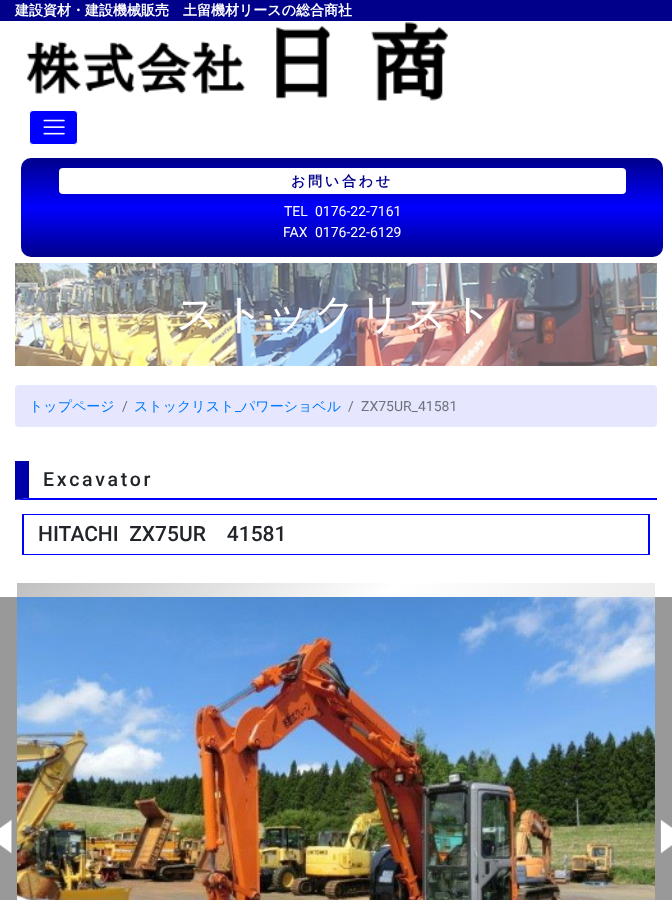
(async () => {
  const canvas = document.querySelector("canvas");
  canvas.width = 672;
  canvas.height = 900;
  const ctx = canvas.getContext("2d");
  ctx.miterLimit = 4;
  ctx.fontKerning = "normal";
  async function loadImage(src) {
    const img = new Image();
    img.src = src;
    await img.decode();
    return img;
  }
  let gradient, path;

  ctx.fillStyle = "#ffffff";
  ctx.fillRect(0, 0, 672, 900);
  ctx.fillStyle = "#00008b";
  ctx.fillRect(0, 0, 672, 21);
  ctx.drawImage(await loadImage("img/1.png"), 26, 22, 422, 79);
  ctx.fillStyle = "#0000ff";
  ctx.beginPath();
  ctx.roundRect(29.5, 110.5, 48, 34, 3.5);
  ctx.fill();
  ctx.strokeStyle = "#ffffff";
  ctx.stroke();
  ctx.drawImage(await loadImage("img/2.png"), 43, 119, 22, 16);
  gradient = ctx.createLinearGradient(342, 158, 342, 257);
  gradient.addColorStop(0, "#00008b");
  gradient.addColorStop(0.5, "#0000ff");
  gradient.addColorStop(1, "#00008b");
  ctx.fillStyle = gradient;
  ctx.beginPath();
  ctx.roundRect(21, 158, 642, 99, 10);
  ctx.fill();
  ctx.fillStyle = "#ffffff";
  ctx.beginPath();
  ctx.roundRect(59, 168, 567, 26, 4);
  ctx.fill();
  ctx.drawImage(await loadImage("img/3.png"), 15, 263, 642, 103);
  ctx.fillStyle = "#e6e6ff";
  ctx.beginPath();
  ctx.roundRect(15, 385, 642, 42, 4);
  ctx.fill();
  ctx.fillStyle = "#0000ff";
  path = new Path2D("M657 500H15L29 498H657Z");
  ctx.fill(path);
  ctx.fillStyle = "#0000aa";
  path = new Path2D("M15 500V461H29V498Z");
  ctx.fill(path);
  for (const [x, y, w, h, color] of [
    [22, 514, 628, 1, "#0000ff"],
    [648, 514, 2, 41, "#0000ff"],
    [22, 554, 628, 1, "#0000ff"],
    [22, 514, 2, 41, "#0000ff"],
  ]) {
    ctx.fillStyle = color;
    ctx.fillRect(x, y, w, h);
  }
  gradient = ctx.createLinearGradient(40, 561, 632, 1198);
  gradient.addColorStop(0, "#c0c0c0");
  gradient.addColorStop(0.3, "#ffffff");
  gradient.addColorStop(1, "#c0c0c0");
  ctx.fillStyle = gradient;
  ctx.fillRect(17, 583, 638, 14);
  ctx.drawImage(await loadImage("img/4.png"), 0, 597, 17, 303);
  ctx.drawImage(await loadImage("img/5.png"), 17, 597, 638, 303);
  ctx.drawImage(await loadImage("img/6.png"), 655, 597, 17, 303);
  ctx.font = "bold 14px WenQuanYi Zen Hei";
  ctx.fillStyle = "#ffffff";
  ctx.fillText("建設資材・建設機械販売　土留機材リースの総合商社", 15, 15);
  ctx.letterSpacing = "2.75px";
  ctx.fillStyle = "#00008b";
  ctx.fillText("お問い合わせ", 291, 186);
  ctx.letterSpacing = "0px";
  ctx.font = "14px Roboto";
  ctx.fillStyle = "#ffffff";
  for (const [text, x, y] of [
    ["TEL", 284, 216],
    ["0176-22-7161", 315, 216],
    ["FAX", 283, 237],
    ["0176-22-6129", 315, 237],
  ]) {
    ctx.fillText(text, x, y);
  }
  ctx.letterSpacing = "2.75px";
  ctx.font = "500 42px WenQuanYi Zen Hei";
  ctx.fillText("ストックリスト", 176, 328);
  ctx.letterSpacing = "0px";
  ctx.font = "500 14px WenQuanYi Zen Hei";
  ctx.fillStyle = "#007bff";
  ctx.fillText("トップページ", 29, 411);
  ctx.font = "14px Roboto";
  ctx.fillStyle = "#6c757d";
  ctx.fillText("/", 122, 411);
  ctx.font = "500 14px WenQuanYi Zen Hei";
  ctx.fillStyle = "#007bff";
  ctx.fillText("ストックリスト", 134, 411);
  ctx.font = "14px Roboto";
  ctx.fillText("_", 235, 411);
  ctx.font = "500 14px WenQuanYi Zen Hei";
  ctx.fillText("パワーショベル", 241, 411);
  ctx.font = "14px Roboto";
  ctx.fillStyle = "#6c757d";
  ctx.fillText("/", 348, 411);
  ctx.fillText("ZX75UR_41581", 361, 411);
  ctx.letterSpacing = "2.75px";
  ctx.font = "500 19.5px Roboto";
  ctx.fillStyle = "#212529";
  ctx.fillText("Excavator", 43, 486);
  ctx.letterSpacing = "0px";
  ctx.font = "500 21px Roboto";
  ctx.fillText("HITACHI  ZX75UR    41581", 38, 541);
})();
